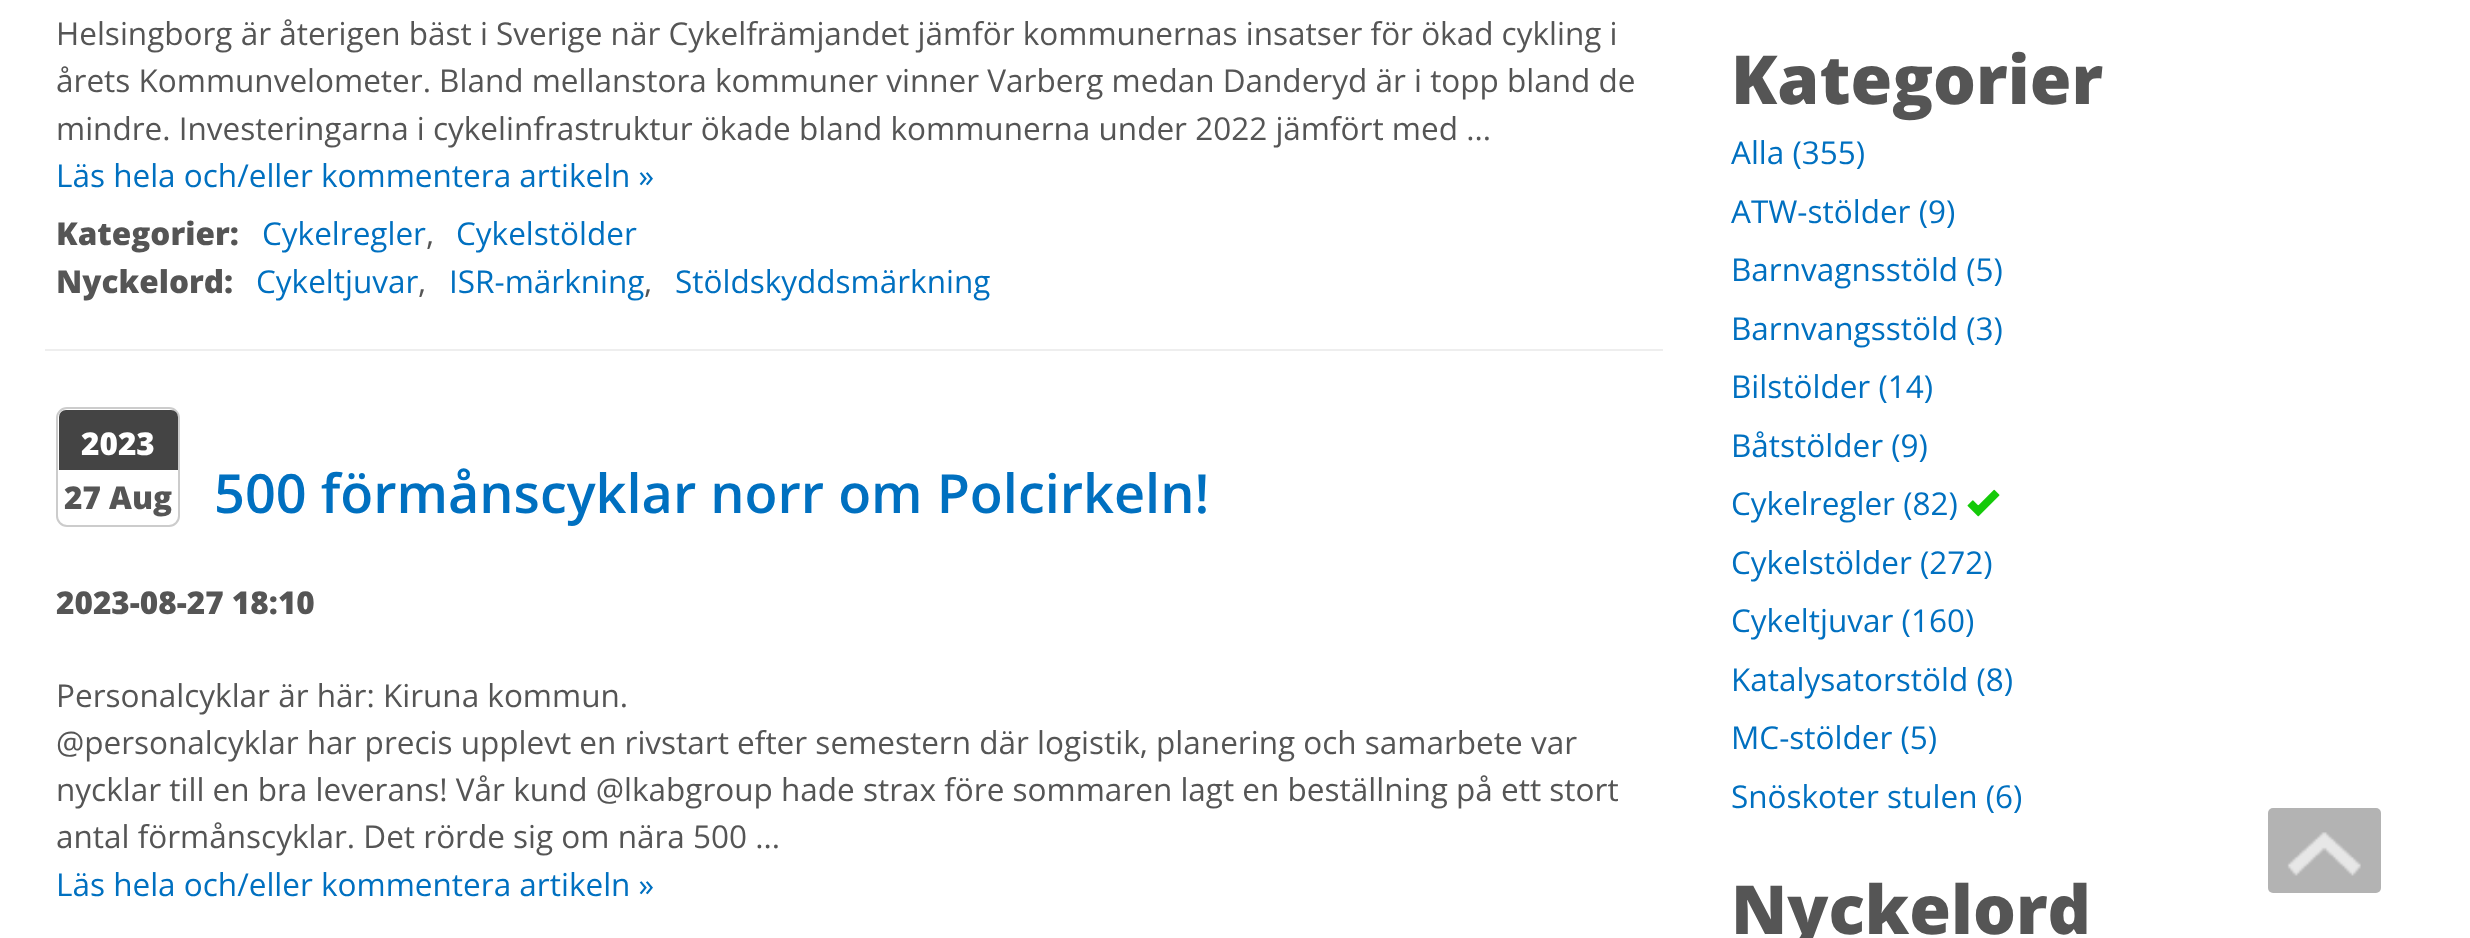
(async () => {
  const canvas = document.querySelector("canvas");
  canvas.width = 2470;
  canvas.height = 938;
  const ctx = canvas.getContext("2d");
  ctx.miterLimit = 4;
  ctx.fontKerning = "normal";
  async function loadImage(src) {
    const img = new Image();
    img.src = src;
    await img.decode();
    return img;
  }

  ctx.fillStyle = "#ffffff";
  ctx.fillRect(0, 0, 2470, 938);
  ctx.fillStyle = "#eeeeee";
  ctx.fillRect(45, 349, 1618, 2);
  ctx.beginPath();
  ctx.roundRect(57, 408, 122, 118, 10);
  ctx.strokeStyle = "#cccccc";
  ctx.lineWidth = 2;
  ctx.stroke();
  ctx.fillStyle = "#444444";
  ctx.beginPath();
  ctx.roundRect(59, 410, 119, 60, [7, 7, 0, 0]);
  ctx.fill();
  ctx.drawImage(await loadImage("img/1.png"), 1967, 489, 33, 28);
  ctx.fillStyle = "#b3b3b3";
  ctx.beginPath();
  ctx.roundRect(2268, 808, 113, 85, 5);
  ctx.fill();
  ctx.drawImage(await loadImage("img/2.png"), 2287, 832, 74, 44);
  ctx.font = "31.5px Open Sans";
  ctx.fillStyle = "#555555";
  for (const [text, x, y] of [
    ["Helsingborg är återigen bäst i Sverige när Cykelfrämjandet jämför kommunernas insatser för ökad cykling i", 56, 45],
    ["årets Kommunvelometer. Bland mellanstora kommuner vinner Varberg medan Danderyd är i topp bland de", 56, 92],
    ["mindre. Investeringarna i cykelinfrastruktur ökade bland kommunerna under 2022 jämfört med ...", 56, 140],
  ]) {
    ctx.fillText(text, x, y);
  }
  ctx.fillStyle = "#0070c0";
  ctx.fillText("Läs hela och/eller kommentera artikeln »", 56, 187);
  ctx.font = "800 31.5px Open Sans";
  ctx.fillStyle = "#555555";
  ctx.fillText("Kategorier:", 56, 245);
  ctx.font = "31.5px Open Sans";
  ctx.fillStyle = "#0070c0";
  ctx.fillText("Cykelregler", 262, 245);
  ctx.fillStyle = "#555555";
  ctx.fillText(",", 426, 245);
  ctx.fillStyle = "#0070c0";
  ctx.fillText("Cykelstölder", 456, 245);
  ctx.font = "800 31.5px Open Sans";
  ctx.fillStyle = "#555555";
  ctx.fillText("Nyckelord:", 56, 293);
  ctx.font = "31.5px Open Sans";
  ctx.fillStyle = "#0070c0";
  ctx.fillText("Cykeltjuvar", 256, 293);
  ctx.fillStyle = "#555555";
  ctx.fillText(",", 418, 293);
  ctx.fillStyle = "#0070c0";
  ctx.fillText("ISR-märkning", 449, 293);
  ctx.fillStyle = "#555555";
  ctx.fillText(",", 644, 293);
  ctx.fillStyle = "#0070c0";
  ctx.fillText("Stöldskyddsmärkning", 675, 293);
  ctx.font = "800 31.5px Open Sans";
  ctx.fillStyle = "#ffffff";
  ctx.fillText("2023", 81, 455);
  ctx.fillStyle = "#555555";
  ctx.fillText("27 Aug", 64, 509);
  ctx.font = "600 54px Open Sans";
  ctx.fillStyle = "#0070c0";
  ctx.fillText("500 förmånscyklar norr om Polcirkeln!", 214, 513);
  ctx.font = "800 31.5px Open Sans";
  ctx.fillStyle = "#555555";
  ctx.fillText("2023-08-27 18:10", 56, 614);
  ctx.font = "31.5px Open Sans";
  for (const [text, x, y] of [
    ["Personalcyklar är här: Kiruna kommun.", 56, 707],
    ["@personalcyklar har precis upplevt en rivstart efter semestern där logistik, planering och samarbete var", 56, 754],
    ["nycklar till en bra leverans! Vår kund @lkabgroup hade strax före sommaren lagt en beställning på ett stort", 56, 801],
    ["antal förmånscyklar. Det rörde sig om nära 500 ...", 56, 848],
  ]) {
    ctx.fillText(text, x, y);
  }
  ctx.fillStyle = "#0070c0";
  ctx.fillText("Läs hela och/eller kommentera artikeln »", 56, 896);
  ctx.font = "800 67.5px Open Sans";
  ctx.fillStyle = "#555555";
  ctx.fillText("Kategorier", 1731, 104);
  ctx.font = "31.5px Open Sans";
  ctx.fillStyle = "#0070c0";
  for (const [text, x, y] of [
    ["Alla (355)", 1731, 164],
    ["ATW-stölder (9)", 1731, 223],
    ["Barnvagnsstöld (5)", 1731, 281],
    ["Barnvangsstöld (3)", 1731, 340],
    ["Bilstölder (14)", 1731, 398],
    ["Båtstölder (9)", 1731, 457],
    ["Cykelregler (82)", 1731, 515],
    ["Cykelstölder (272)", 1731, 574],
    ["Cykeltjuvar (160)", 1731, 632],
    ["Katalysatorstöld (8)", 1731, 691],
    ["MC-stölder (5)", 1731, 749],
    ["Snöskoter stulen (6)", 1731, 808],
  ]) {
    ctx.fillText(text, x, y);
  }
  ctx.font = "800 67.5px Open Sans";
  ctx.fillStyle = "#555555";
  ctx.fillText("Nyckelord", 1731, 934);
})();
